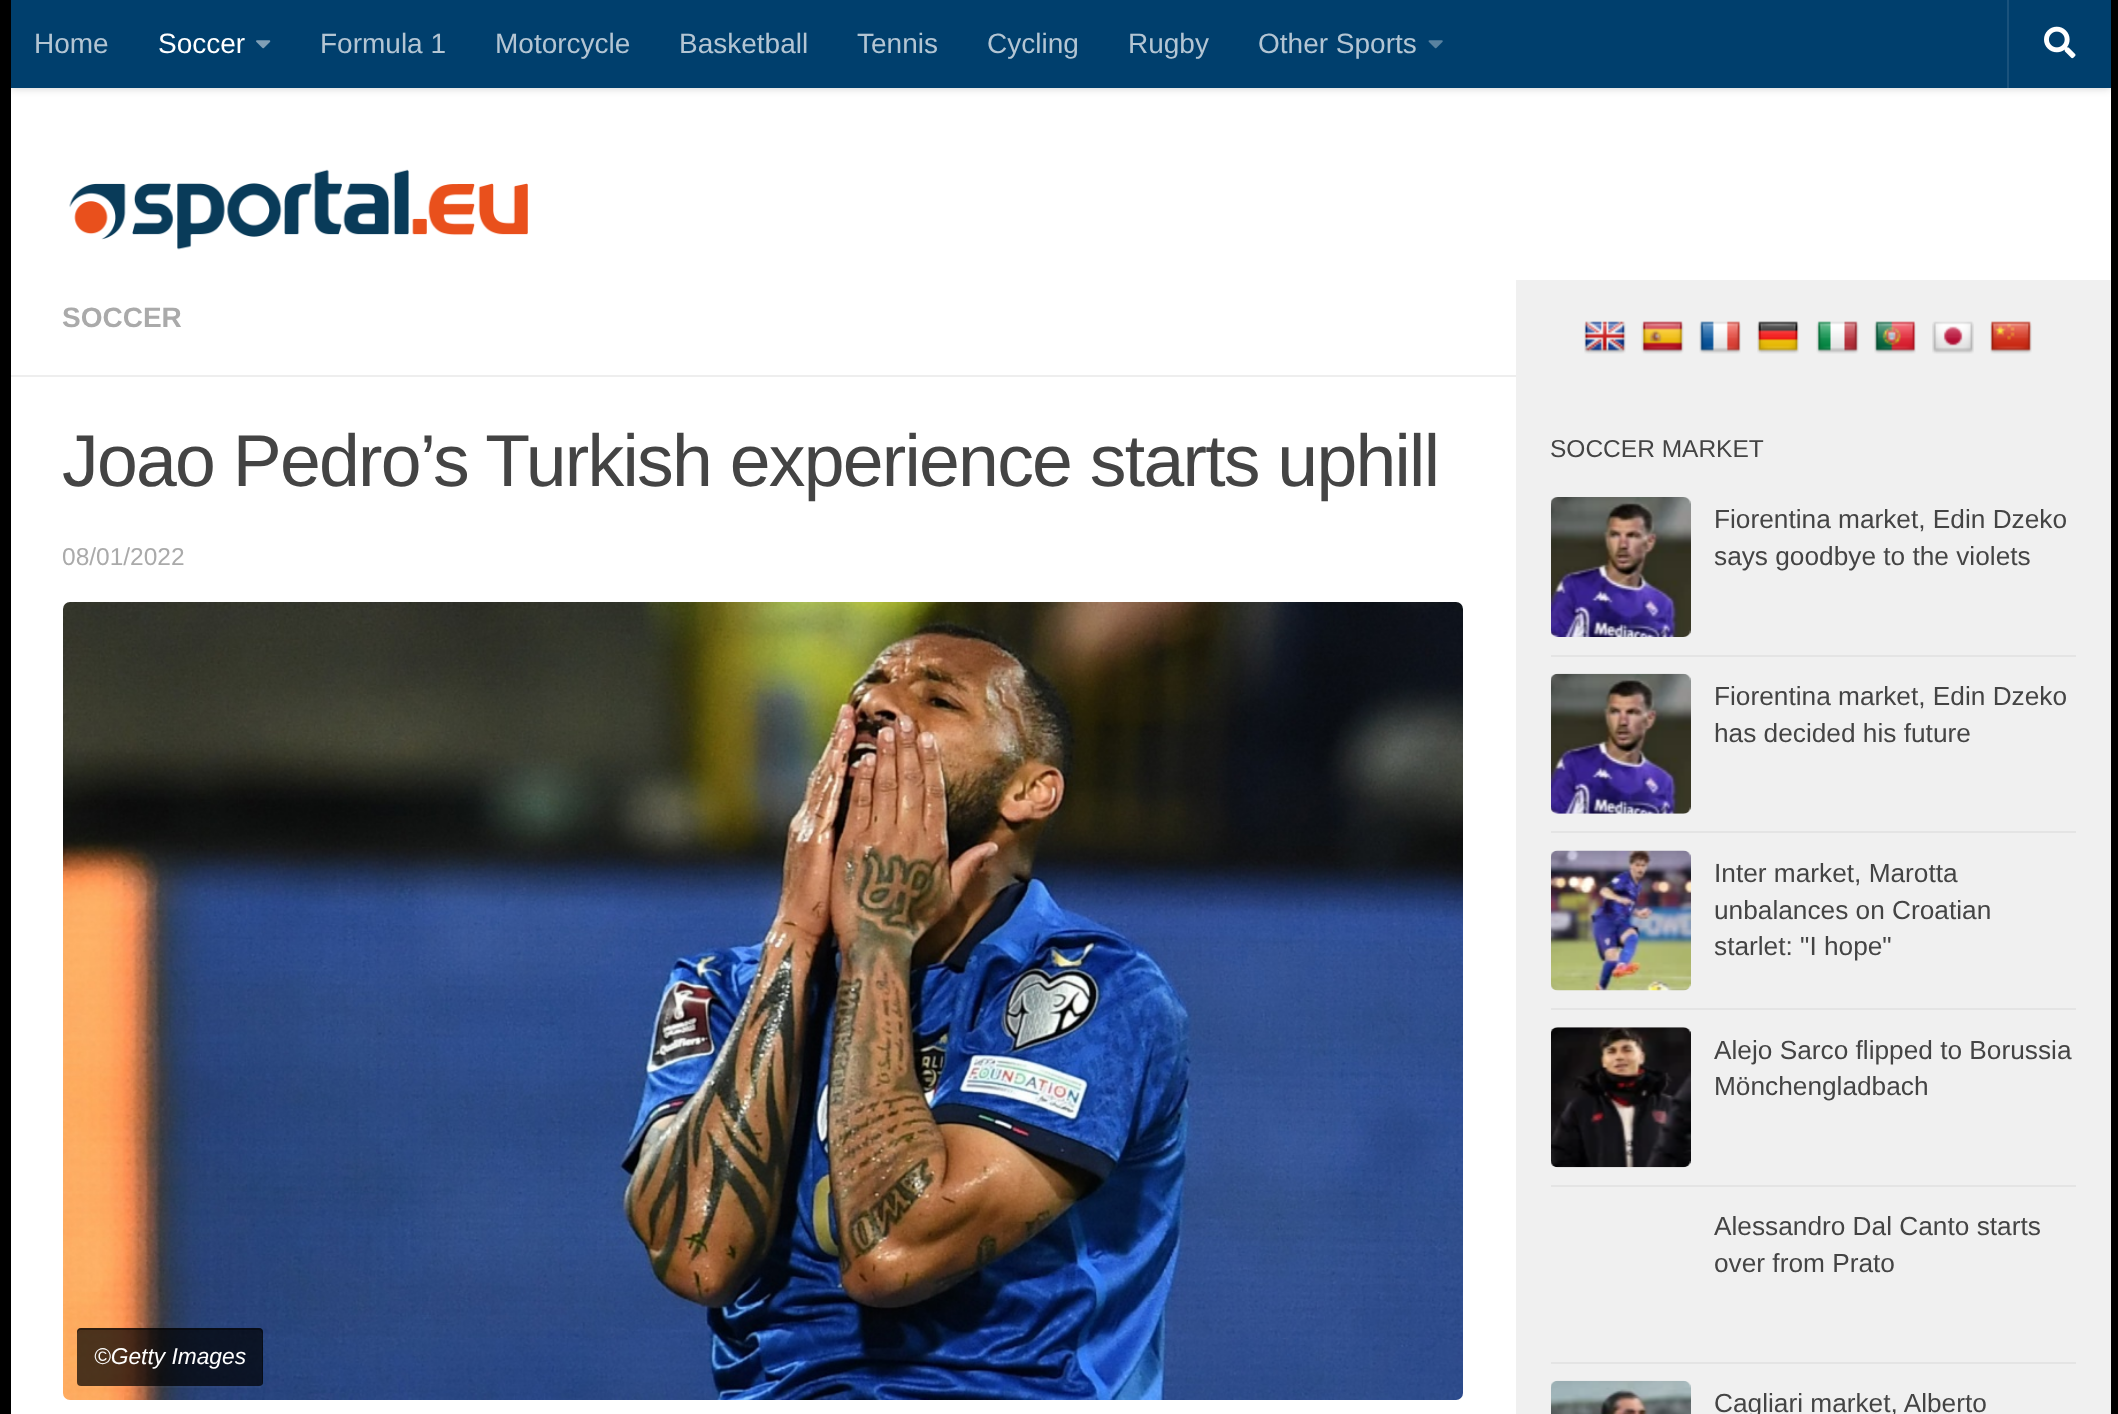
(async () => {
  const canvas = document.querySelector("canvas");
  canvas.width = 2118;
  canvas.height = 1414;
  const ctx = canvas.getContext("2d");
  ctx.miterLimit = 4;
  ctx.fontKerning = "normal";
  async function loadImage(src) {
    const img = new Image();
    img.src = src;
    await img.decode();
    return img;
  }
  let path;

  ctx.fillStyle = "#000000";
  ctx.fillRect(0, 0, 2118, 1414);
  ctx.fillStyle = "#ffffff";
  ctx.fillRect(11, 88, 2100, 297);
  ctx.fillStyle = "rgba(0, 0, 0, 0.2)";
  ctx.filter = "blur(4.5px)";
  ctx.beginPath();
  ctx.rect(11, 0, 2100, 88);
  ctx.fill();
  ctx.filter = "none";
  ctx.fillStyle = "#003f6d";
  ctx.fillRect(11, 0, 2100, 88);
  ctx.drawImage(await loadImage("img/1.png"), 256, 40, 15, 9);
  ctx.drawImage(await loadImage("img/2.png"), 1428, 40, 15, 9);
  ctx.fillStyle = "#1a527c";
  path = new Path2D("M2007 0V88H2109H2009V0Z");
  ctx.fill(path);
  ctx.drawImage(await loadImage("img/3.png"), 2044, 26, 32, 33);
  ctx.drawImage(await loadImage("img/4.png"), 69, 169, 459, 81);
  for (const [x, y, w, h, color] of [
    [11, 385, 1505, 1029, "#ffffff"],
    [1516, 280, 595, 1134, "#f0f0f0"],
    [11, 375, 1505, 2, "#eeeeee"],
  ]) {
    ctx.fillStyle = color;
    ctx.fillRect(x, y, w, h);
  }
  ctx.drawImage(await loadImage("img/5.png"), 63, 602, 1400, 798);
  ctx.fillStyle = "rgba(255, 255, 255, 0.03)";
  path = new Path2D("M77 1382V1384C77 1386 79 1388 81 1388H259C261 1388 263 1386 263 1384V1334L262 1332V1382C262 1384 261 1386 259 1386H80C79 1386 77 1384 77 1382Z");
  ctx.fill(path);
  ctx.fillStyle = "rgba(0, 0, 0, 0.7)";
  ctx.beginPath();
  ctx.roundRect(77, 1328, 186, 58, 4);
  ctx.fill();
  ctx.fillStyle = "rgba(0, 0, 0, 0.4)";
  path = new Path2D("M80 1330H259C264 1330 262 1342 262 1342V1385C263 1384 263 1383 263 1382V1332C263 1330 261 1328 259 1328H81C79 1328 77 1330 77 1332V1334C77 1332 79 1330 80 1330Z");
  ctx.fill(path);
  ctx.drawImage(await loadImage("img/6.png"), 1584, 321, 42, 33);
  ctx.drawImage(await loadImage("img/7.png"), 1641, 321, 43, 33);
  ctx.drawImage(await loadImage("img/8.png"), 1699, 321, 42, 33);
  ctx.drawImage(await loadImage("img/9.png"), 1757, 321, 42, 33);
  ctx.drawImage(await loadImage("img/10.png"), 1816, 321, 43, 33);
  ctx.drawImage(await loadImage("img/11.png"), 1874, 321, 42, 33);
  ctx.drawImage(await loadImage("img/12.png"), 1932, 321, 42, 33);
  ctx.drawImage(await loadImage("img/13.png"), 1990, 321, 42, 33);
  ctx.fillStyle = "#e4e4e4";
  ctx.fillRect(1551, 655, 525, 2);
  ctx.drawImage(await loadImage("img/14.png"), 1551, 497, 140, 140);
  ctx.fillRect(1551, 831, 525, 2);
  ctx.drawImage(await loadImage("img/15.png"), 1551, 673, 140, 141);
  ctx.fillRect(1551, 1008, 525, 2);
  ctx.drawImage(await loadImage("img/16.png"), 1551, 850, 140, 141);
  ctx.fillRect(1551, 1185, 525, 2);
  ctx.drawImage(await loadImage("img/17.png"), 1551, 1027, 140, 141);
  ctx.fillRect(1551, 1362, 525, 2);
  ctx.drawImage(await loadImage("img/18.png"), 1551, 1380, 140, 34);
  ctx.font = "28px Liberation Sans";
  ctx.fillStyle = "#b3c5d3";
  ctx.fillText("Home", 34, 53);
  ctx.fillStyle = "#ffffff";
  ctx.fillText("Soccer", 158, 53);
  ctx.fillStyle = "#b3c5d3";
  for (const [text, x, y] of [
    ["Formula 1", 320, 53],
    ["Motorcycle", 495, 53],
    ["Basketball", 679, 53],
    ["Tennis", 857, 53],
    ["Cycling", 987, 53],
    ["Rugby", 1128, 53],
    ["Other Sports", 1258, 53],
  ]) {
    ctx.fillText(text, x, y);
  }
  ctx.font = "bold 28px Liberation Sans";
  ctx.fillStyle = "#aaaaaa";
  ctx.fillText("SOCCER", 62, 327);
  ctx.letterSpacing = "-1.75px";
  ctx.font = "73.4px Liberation Sans";
  ctx.fillStyle = "#444444";
  ctx.fillText("Joao Pedro’s Turkish experience starts uphill", 62, 486);
  ctx.letterSpacing = "0px";
  ctx.font = "24.5px Liberation Sans";
  ctx.fillStyle = "#aaaaaa";
  ctx.fillText("08/01/2022", 62, 565);
  ctx.font = "italic 22.75px Liberation Sans";
  ctx.fillStyle = "#ffffff";
  ctx.fillText("©Getty Images", 94, 1364);
  ctx.font = "24.5px Liberation Sans";
  ctx.fillStyle = "#444444";
  ctx.fillText("SOCCER MARKET", 1550, 457);
  ctx.font = "26.25px Liberation Sans";
  for (const [text, x, y] of [
    ["Fiorentina market, Edin Dzeko", 1714, 528],
    ["says goodbye to the violets", 1714, 565],
    ["Fiorentina market, Edin Dzeko", 1714, 705],
    ["has decided his future", 1714, 742],
    ["Inter market, Marotta", 1714, 882],
    ["unbalances on Croatian", 1714, 919],
    ["starlet: \"I hope\"", 1714, 955],
    ["Alejo Sarco flipped to Borussia", 1714, 1059],
    ["Mönchengladbach", 1714, 1095],
    ["Alessandro Dal Canto starts", 1714, 1235],
    ["over from Prato", 1714, 1272],
    ["Cagliari market, Alberto", 1714, 1412],
  ]) {
    ctx.fillText(text, x, y);
  }
})();
